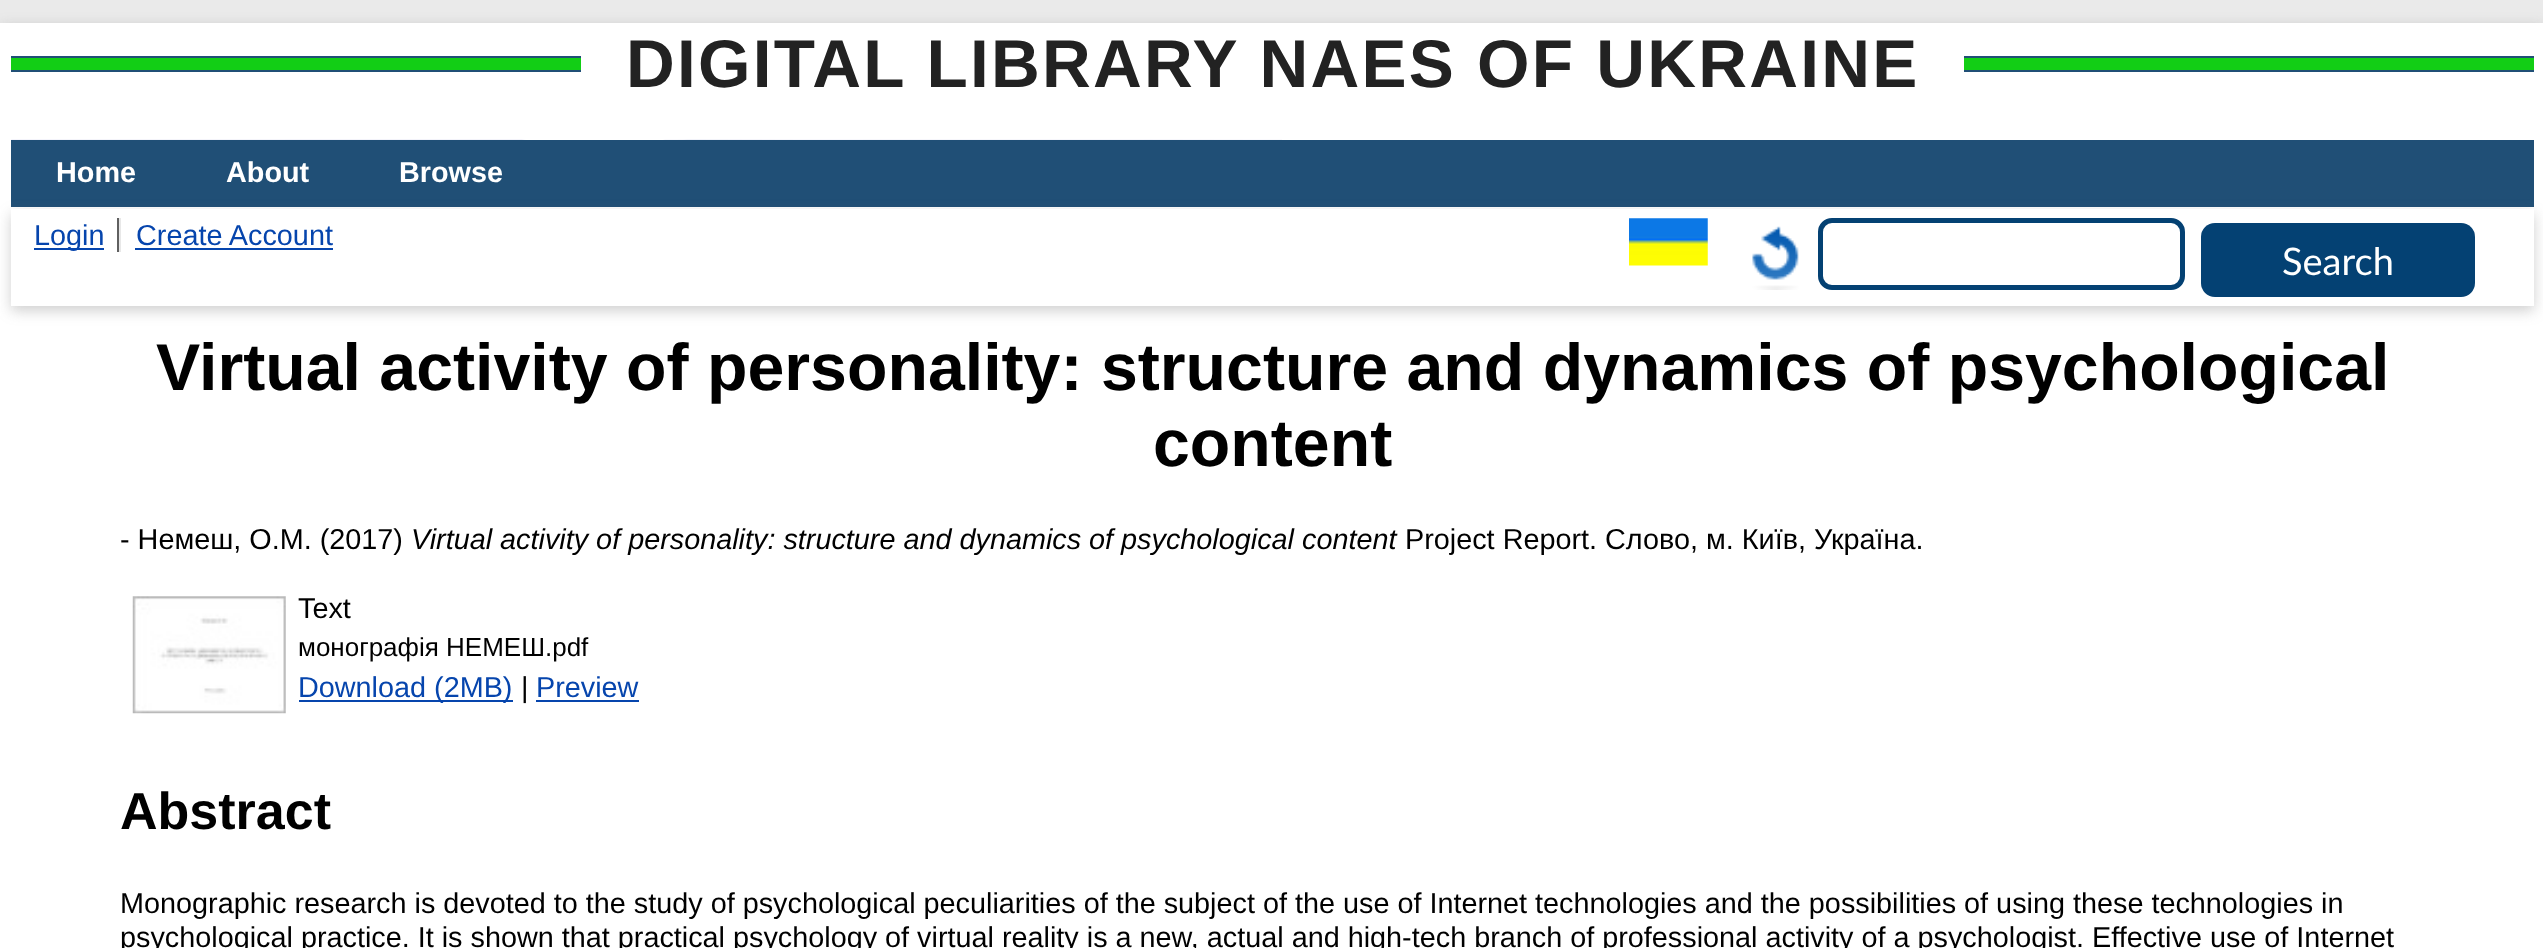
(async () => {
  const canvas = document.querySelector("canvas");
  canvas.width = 2543;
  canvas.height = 948;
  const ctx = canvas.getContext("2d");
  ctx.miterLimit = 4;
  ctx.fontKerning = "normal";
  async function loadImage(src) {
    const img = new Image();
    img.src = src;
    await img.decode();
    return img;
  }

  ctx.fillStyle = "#eaeaea";
  ctx.fillRect(0, 0, 2543, 948);
  ctx.fillStyle = "rgba(100, 100, 100, 0.3)";
  ctx.filter = "blur(7px)";
  ctx.beginPath();
  ctx.rect(0, 27, 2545, 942);
  ctx.fill();
  ctx.filter = "none";
  for (const [x, y, w, h, color] of [
    [0, 23, 2543, 925, "#ffffff"],
    [11, 58, 570, 12, "#12ce15"],
    [11, 56, 570, 2, "#204f76"],
    [11, 70, 570, 2, "#204f76"],
    [1964, 58, 570, 12, "#12ce15"],
    [1964, 56, 570, 2, "#204f76"],
    [1964, 70, 570, 2, "#204f76"],
  ]) {
    ctx.fillStyle = color;
    ctx.fillRect(x, y, w, h);
  }
  ctx.drawImage(await loadImage("img/1.png"), 11, 139, 1271, 1);
  ctx.fillRect(11, 140, 2523, 67);
  ctx.fillStyle = "rgba(100, 100, 100, 0.3)";
  ctx.filter = "blur(7px)";
  ctx.beginPath();
  ctx.rect(11, 214, 2523, 97);
  ctx.fill();
  ctx.filter = "none";
  for (const [x, y, w, h, color] of [
    [11, 209, 2523, 97, "#ffffff"],
    [117, 218, 2, 34, "#606060"],
    [34, 248, 70, 2, "#0645ad"],
    [119, 218, 2, 34, "#e8e8e8"],
    [135, 248, 198, 2, "#0645ad"],
  ]) {
    ctx.fillStyle = color;
    ctx.fillRect(x, y, w, h);
  }
  ctx.drawImage(await loadImage("img/2.png"), 1629, 218, 79, 48);
  ctx.drawImage(await loadImage("img/3.png"), 1752, 226, 47, 64);
  ctx.beginPath();
  ctx.roundRect(1820.5, 220.5, 362, 67, 11.5);
  ctx.strokeStyle = "#044173";
  ctx.lineWidth = 5;
  ctx.stroke();
  ctx.fillStyle = "#044173";
  ctx.beginPath();
  ctx.roundRect(2201, 223, 274, 74, 14);
  ctx.fill();
  ctx.drawImage(await loadImage("img/4.png"), 132, 596, 154, 118);
  ctx.fillStyle = "#0645ad";
  ctx.fillRect(299, 700, 214, 2);
  ctx.fillRect(536, 700, 103, 2);
  ctx.letterSpacing = "2.25px";
  ctx.font = "bold 67.5px Liberation Sans";
  ctx.fillStyle = "#222222";
  ctx.fillText("DIGITAL LIBRARY NAES OF UKRAINE", 626, 87);
  ctx.letterSpacing = "0px";
  ctx.font = "bold 28.8px Liberation Sans";
  ctx.fillStyle = "#ffffff";
  for (const [text, x, y] of [
    ["Home", 56, 182],
    ["About", 226, 182],
    ["Browse", 399, 182],
  ]) {
    ctx.fillText(text, x, y);
  }
  ctx.font = "28.8px Liberation Sans";
  ctx.fillStyle = "#0645ad";
  ctx.fillText("Login", 34, 245);
  ctx.fillText("Create Account", 136, 245);
  ctx.font = "38px Lato";
  ctx.fillStyle = "#ffffff";
  ctx.fillText("Search", 2282, 275);
  ctx.font = "bold 66.25px Liberation Sans";
  ctx.fillStyle = "#000000";
  ctx.fillText("Virtual activity of personality: structure and dynamics of psychological", 156, 390);
  ctx.fillText("content", 1153, 466);
  ctx.font = "28.8px Liberation Sans";
  ctx.fillText("- Немеш, О.М. (2017)", 120, 549);
  ctx.font = "italic 28.8px Liberation Sans";
  ctx.fillText("Virtual activity of personality: structure and dynamics of psychological content", 411, 549);
  ctx.font = "28.8px Liberation Sans";
  ctx.fillText("Project Report. Слово, м. Київ, Україна.", 1405, 549);
  ctx.fillText("Text", 298, 618);
  ctx.font = "26px Liberation Sans";
  ctx.fillText("монографія НЕМЕШ.pdf", 298, 656);
  ctx.font = "28.8px Liberation Sans";
  ctx.fillStyle = "#0645ad";
  ctx.fillText("Download (2MB)", 298, 697);
  ctx.fillStyle = "#000000";
  ctx.fillText("|", 521, 697);
  ctx.fillStyle = "#0645ad";
  ctx.fillText("Preview", 536, 697);
  ctx.font = "bold 52px Liberation Sans";
  ctx.fillStyle = "#000000";
  ctx.fillText("Abstract", 120, 829);
  ctx.font = "28.8px Liberation Sans";
  for (const [text, x, y] of [
    ["Monographic research is devoted to the study of psychological peculiarities of the subject of the use of Internet technologies and the possibilities of using these technologies in", 120, 913],
    ["psychological practice. It is shown that practical psychology of virtual reality is a new, actual and high-tech branch of professional activity of a psychologist.", 120, 947],
    ["Effective use of Internet", 2092, 947],
  ]) {
    ctx.fillText(text, x, y);
  }
})();
